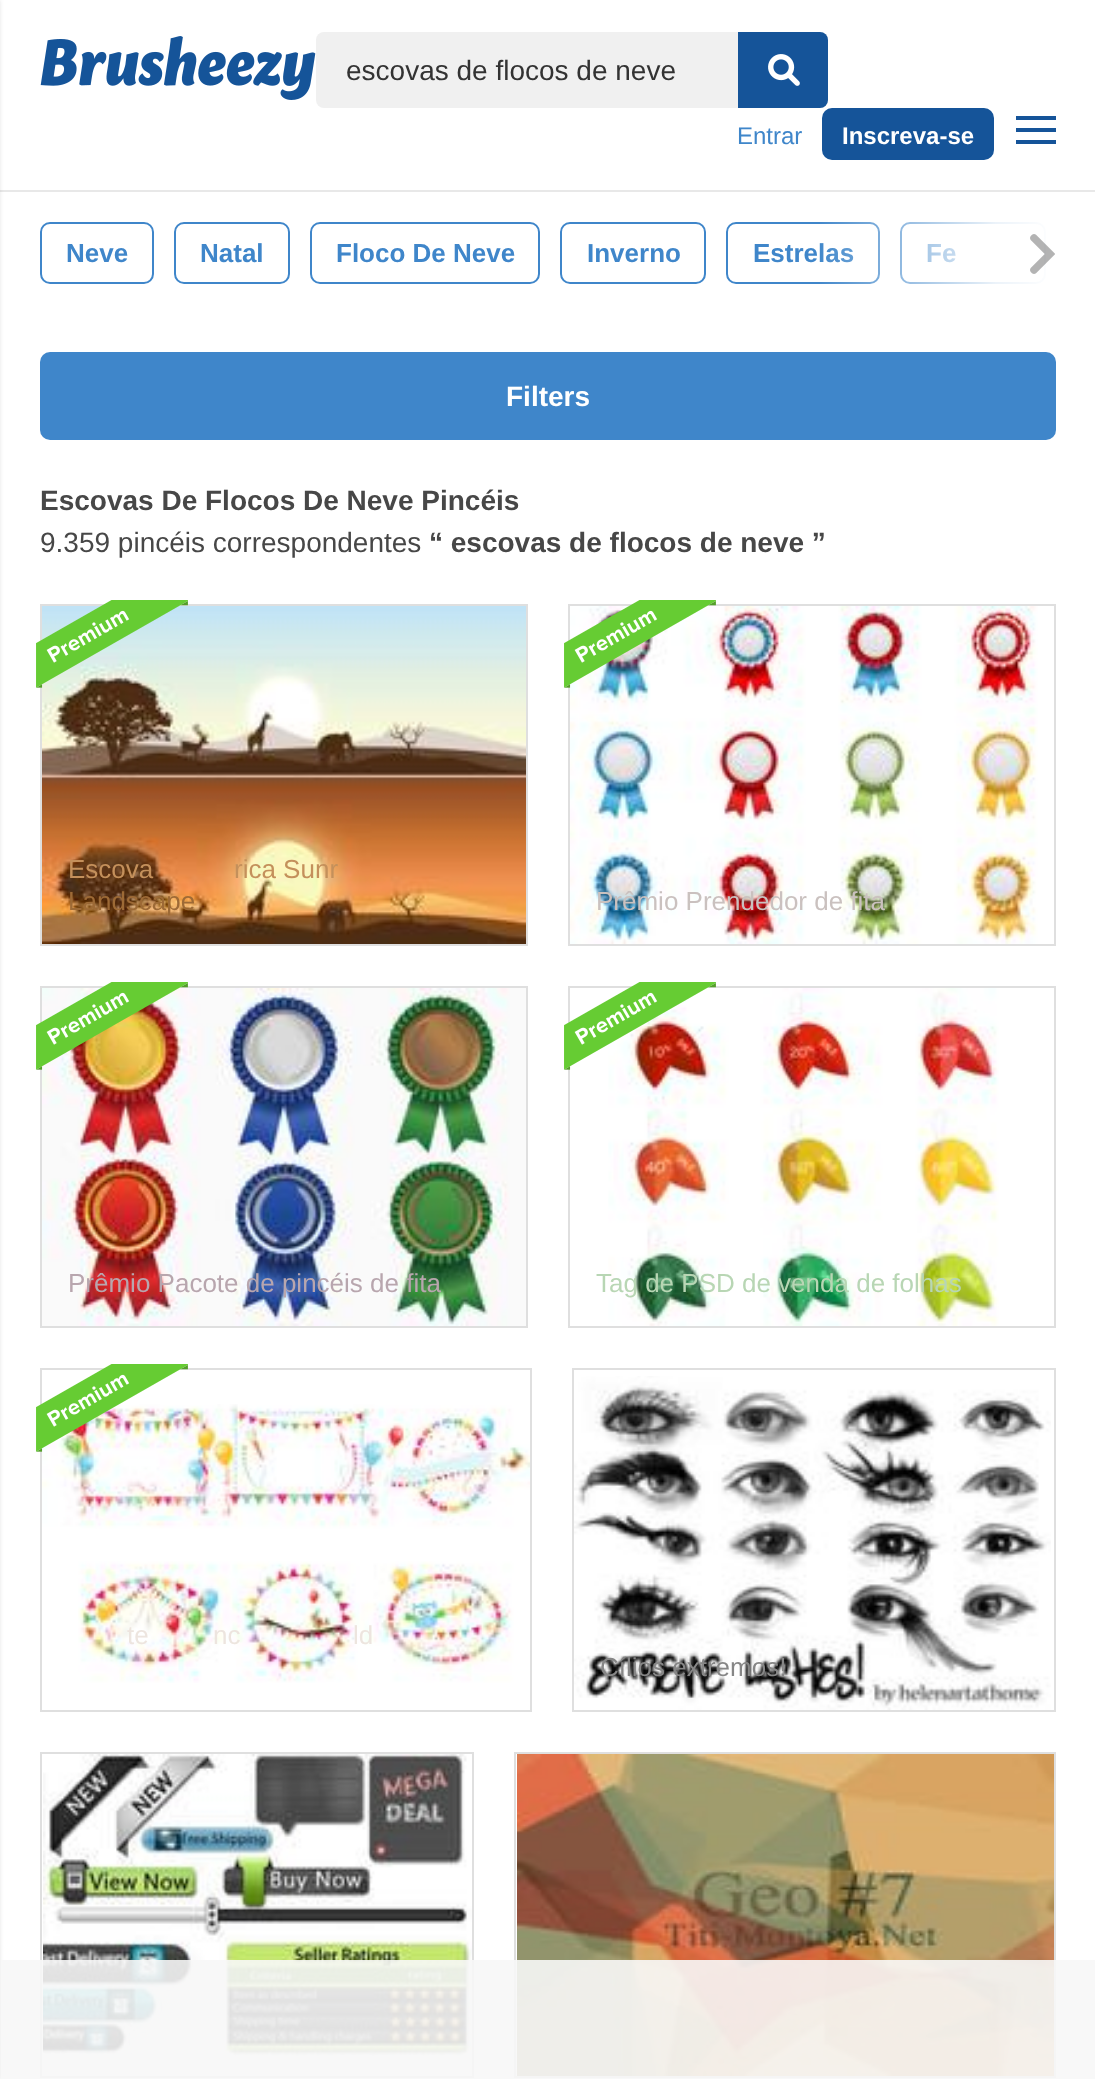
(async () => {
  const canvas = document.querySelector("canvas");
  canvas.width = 1095;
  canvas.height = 2079;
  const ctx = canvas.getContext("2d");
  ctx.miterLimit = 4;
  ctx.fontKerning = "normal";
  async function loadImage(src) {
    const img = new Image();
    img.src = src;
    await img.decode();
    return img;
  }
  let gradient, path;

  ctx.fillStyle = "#ffffff";
  ctx.fillRect(0, 0, 1095, 2079);
  ctx.fillStyle = "#e8e8e8";
  ctx.fillRect(0, 190, 1095, 2);
  ctx.drawImage(await loadImage("img/1.png"), 40, 36, 276, 64);
  ctx.fillStyle = "#f0f0f0";
  ctx.beginPath();
  ctx.roundRect(316, 32, 512, 76, 8);
  ctx.fill();
  ctx.fillStyle = "#155499";
  ctx.beginPath();
  ctx.roundRect(738, 32, 90, 76, [0, 8, 8, 0]);
  ctx.fill();
  ctx.drawImage(await loadImage("img/2.png"), 768, 54, 32, 32);
  ctx.beginPath();
  ctx.roundRect(822, 108, 172, 52, 10);
  ctx.fill();
  path = new Path2D("M1016 116V120H1056V116ZM1016 132H1056V128H1016ZM1016 144H1056V140H1016Z");
  ctx.fill(path);
  ctx.beginPath();
  ctx.roundRect(41, 223, 112, 60, 9);
  ctx.strokeStyle = "#3f86ca";
  ctx.lineWidth = 2;
  ctx.stroke();
  ctx.beginPath();
  ctx.roundRect(175, 223, 114, 60, 9);
  ctx.stroke();
  ctx.beginPath();
  ctx.roundRect(311, 223, 228, 60, 9);
  ctx.stroke();
  ctx.beginPath();
  ctx.roundRect(561, 223, 144, 60, 9);
  ctx.stroke();
  ctx.beginPath();
  ctx.roundRect(727, 223, 152, 60, 9);
  ctx.stroke();
  ctx.beginPath();
  ctx.roundRect(901, 223, 144, 60, 9);
  ctx.stroke();
  ctx.fillStyle = "#3f86ca";
  ctx.beginPath();
  ctx.roundRect(40, 352, 1016, 88, 10);
  ctx.fill();
  ctx.fillStyle = "rgba(0, 0, 0, 0.1)";
  ctx.filter = "blur(2px)";
  ctx.beginPath();
  ctx.rect(-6, 0, 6, 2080);
  ctx.fill();
  ctx.filter = "none";
  ctx.strokeStyle = "#dfdfdf";
  ctx.strokeRect(41, 605, 486, 340);
  ctx.drawImage(await loadImage("img/5.png"), 42, 606, 484, 338);
  ctx.drawImage(await loadImage("img/4.png"), 36, 600, 152, 88);
  ctx.strokeRect(569, 605, 486, 340);
  ctx.drawImage(await loadImage("img/7.png"), 570, 606, 468, 338);
  ctx.drawImage(await loadImage("img/6.png"), 564, 600, 152, 88);
  ctx.strokeRect(41, 987, 486, 340);
  ctx.drawImage(await loadImage("img/9.png"), 42, 988, 484, 338);
  ctx.drawImage(await loadImage("img/8.png"), 36, 982, 152, 88);
  ctx.strokeRect(569, 987, 486, 340);
  ctx.drawImage(await loadImage("img/11.png"), 608, 988, 391, 338);
  ctx.drawImage(await loadImage("img/10.png"), 564, 982, 152, 88);
  ctx.strokeRect(41, 1369, 490, 342);
  ctx.drawImage(await loadImage("img/13.png"), 42, 1404, 488, 279);
  ctx.drawImage(await loadImage("img/12.png"), 36, 1364, 152, 88);
  ctx.strokeRect(573, 1369, 482, 342);
  ctx.drawImage(await loadImage("img/14.png"), 574, 1376, 477, 334);
  ctx.strokeRect(41, 1753, 432, 324);
  ctx.drawImage(await loadImage("img/15.png"), 43, 1754, 429, 302);
  ctx.strokeRect(515, 1753, 540, 324);
  ctx.drawImage(await loadImage("img/16.png"), 517, 1754, 537, 322);
  ctx.fillStyle = "rgba(247, 247, 247, 0.9)";
  ctx.fillRect(1, 1960, 1094, 119);
  ctx.font = "28px Liberation Sans";
  ctx.fillStyle = "#333333";
  ctx.fillText("escovas de flocos de neve", 346, 80);
  ctx.font = "24px Liberation Sans";
  ctx.fillStyle = "#3f86ca";
  ctx.fillText("Entrar", 737, 144);
  ctx.font = "bold 24px Liberation Sans";
  ctx.fillStyle = "#ffffff";
  ctx.fillText("Inscreva-se", 842, 144);
  ctx.font = "bold 26px Liberation Sans";
  ctx.fillStyle = "#3f86ca";
  for (const [text, x, y] of [
    ["Neve", 66, 262],
    ["Natal", 200, 262],
    ["Floco De Neve", 336, 262],
    ["Inverno", 587, 262],
    ["Estrelas", 753, 262],
    ["Fe", 926, 262],
  ]) {
    ctx.fillText(text, x, y);
  }
  gradient = ctx.createLinearGradient(816, 253, 1056, 253);
  gradient.addColorStop(0, "rgba(255, 255, 255, 0)");
  gradient.addColorStop(0.75, "rgba(255, 255, 255, 0.9)");
  gradient.addColorStop(1, "#ffffff");
  ctx.fillStyle = gradient;
  ctx.fillRect(820, 222, 226, 62);
  ctx.drawImage(await loadImage("img/3.png"), 1030, 234, 25, 40);
  ctx.font = "bold 28px Liberation Sans";
  ctx.fillStyle = "#ffffff";
  ctx.fillText("Filters", 506, 406);
  ctx.fillStyle = "#474747";
  ctx.fillText("Escovas De Flocos De Neve Pincéis", 40, 510);
  ctx.font = "28px Liberation Sans";
  ctx.fillText("9.359 pincéis correspondentes", 40, 552);
  ctx.font = "bold 28px Liberation Sans";
  ctx.fillText("“ escovas de flocos de neve ”", 429, 552);
  ctx.font = "26px Liberation Sans";
  ctx.fillStyle = "#c4905b";
  ctx.fillText("Escova", 68, 878);
  ctx.fillText("rica Sunr", 234, 878);
  ctx.fillStyle = "#9d6a36";
  ctx.fillText("Landscape", 68, 910);
  ctx.fillStyle = "#cac1bf";
  ctx.fillText("Prêmio Prendedor de fita", 596, 910);
  ctx.fillStyle = "#b8a6ae";
  ctx.fillText("Prêmio Pacote de pincéis de fita", 68, 1292);
  ctx.fillStyle = "#b8d6b4";
  ctx.fillText("Tag de PSD de venda de folhas", 596, 1292);
  ctx.fillStyle = "#ede5df";
  for (const [text, x, y] of [
    ["te", 127, 1644],
    ["nc", 213, 1644],
    ["ld", 353, 1644],
  ]) {
    ctx.fillText(text, x, y);
  }
  ctx.fillStyle = "#868686";
  ctx.fillText("Cílios extremos!", 600, 1676);
})();
